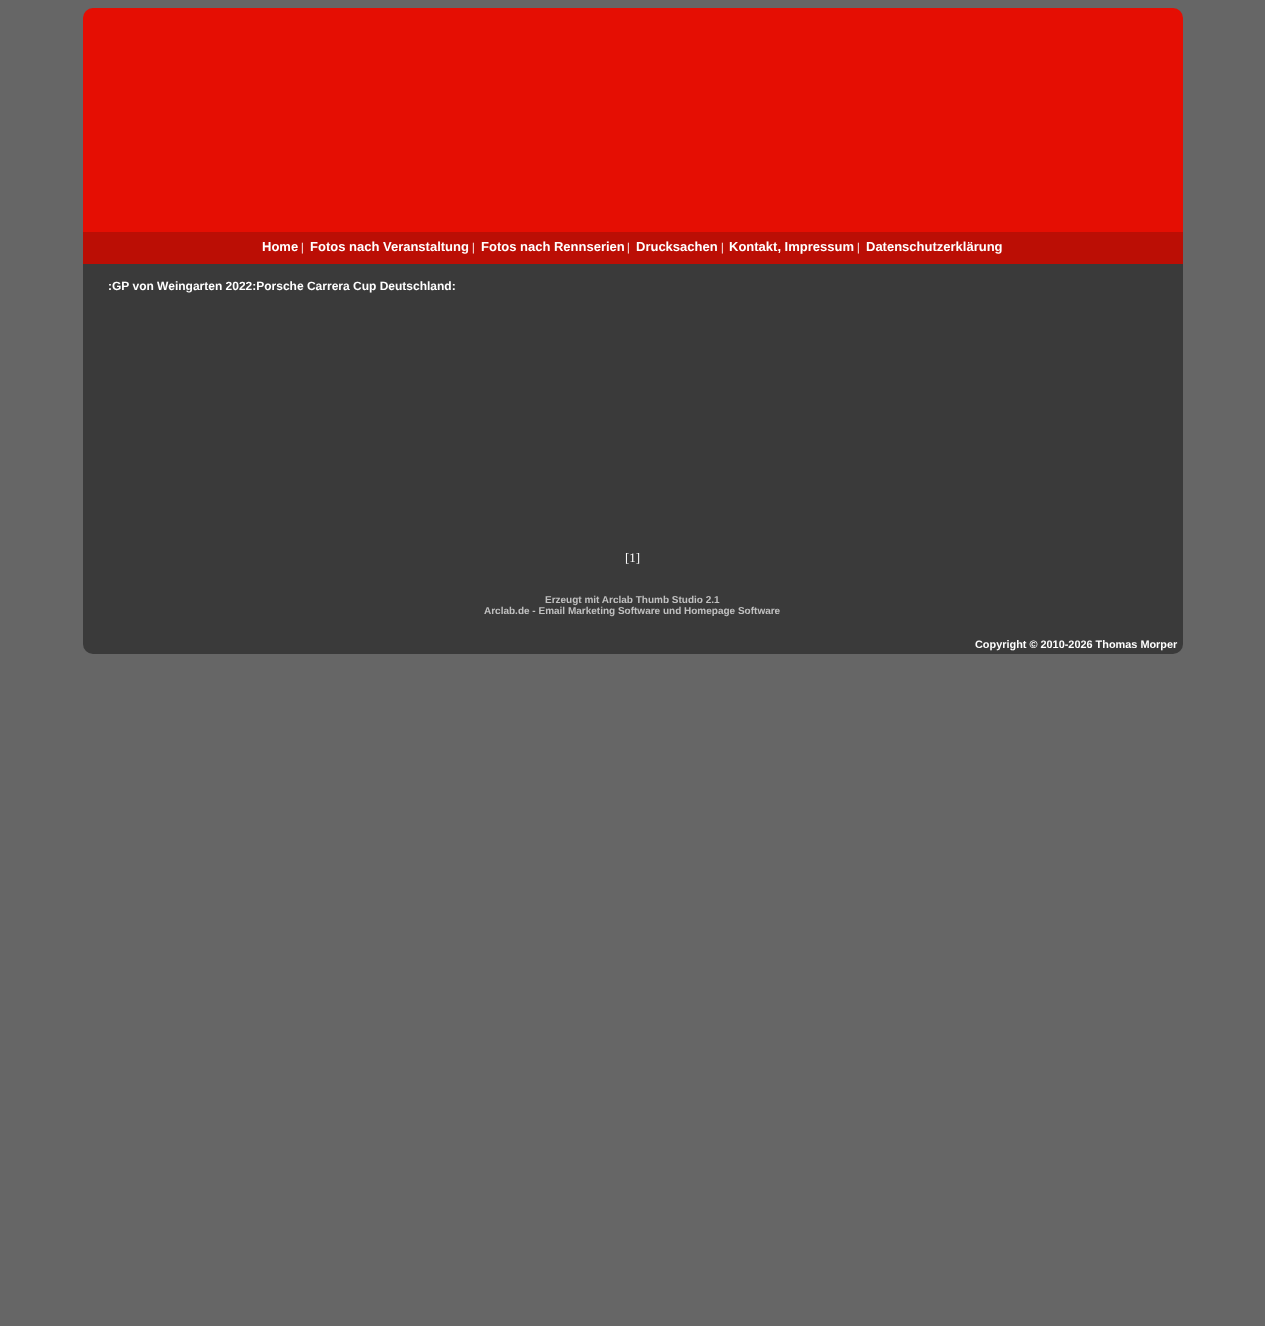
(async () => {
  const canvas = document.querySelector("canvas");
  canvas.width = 1265;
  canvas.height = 1326;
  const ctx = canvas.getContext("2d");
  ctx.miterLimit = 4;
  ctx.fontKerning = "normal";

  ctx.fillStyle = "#666666";
  ctx.fillRect(0, 0, 1265, 1326);
  ctx.fillStyle = "#e50e03";
  ctx.beginPath();
  ctx.roundRect(83, 8, 1100, 224, [10, 10, 0, 0]);
  ctx.fill();
  ctx.fillStyle = "#bb0e05";
  ctx.fillRect(83, 232, 1100, 32);
  ctx.fillStyle = "#3a3a3a";
  ctx.beginPath();
  ctx.roundRect(83, 264, 1100, 390, [0, 0, 10, 10]);
  ctx.fill();
  ctx.font = "bold 13px Liberation Sans";
  ctx.fillStyle = "#ffffff";
  ctx.fillText("Home", 262, 251);
  ctx.font = "bold 12px Liberation Serif";
  ctx.fillText("|", 301, 251);
  ctx.font = "bold 13px Liberation Sans";
  ctx.fillText("Fotos nach Veranstaltung", 310, 251);
  ctx.font = "bold 12px Liberation Serif";
  ctx.fillText("|", 472, 251);
  ctx.font = "bold 13px Liberation Sans";
  ctx.fillText("Fotos nach Rennserien", 481, 251);
  ctx.font = "bold 12px Liberation Serif";
  ctx.fillText("|", 627, 251);
  ctx.font = "bold 13px Liberation Sans";
  ctx.fillText("Drucksachen", 636, 251);
  ctx.font = "bold 12px Liberation Serif";
  ctx.fillText("|", 721, 251);
  ctx.font = "bold 13px Liberation Sans";
  ctx.fillText("Kontakt, Impressum", 729, 251);
  ctx.font = "bold 12px Liberation Serif";
  ctx.fillText("|", 857, 251);
  ctx.font = "bold 13px Liberation Sans";
  ctx.fillText("Datenschutzerklärung", 866, 251);
  ctx.font = "bold 12px Liberation Sans";
  ctx.fillText(":GP von Weingarten 2022:Porsche Carrera Cup Deutschland:", 108, 290);
  ctx.font = "13px Liberation Serif";
  ctx.fillText("[1]", 625, 562);
  ctx.font = "bold 10px Liberation Sans";
  ctx.fillStyle = "#c0c0c0";
  ctx.fillText("Erzeugt mit Arclab Thumb Studio 2.1", 545, 603);
  ctx.fillText("Arclab.de - Email Marketing Software und Homepage Software", 484, 614);
  ctx.font = "bold 10.9px Liberation Sans";
  ctx.fillStyle = "#ffffff";
  ctx.fillText("Copyright © 2010-2026 Thomas Morper", 975, 648);
})();
